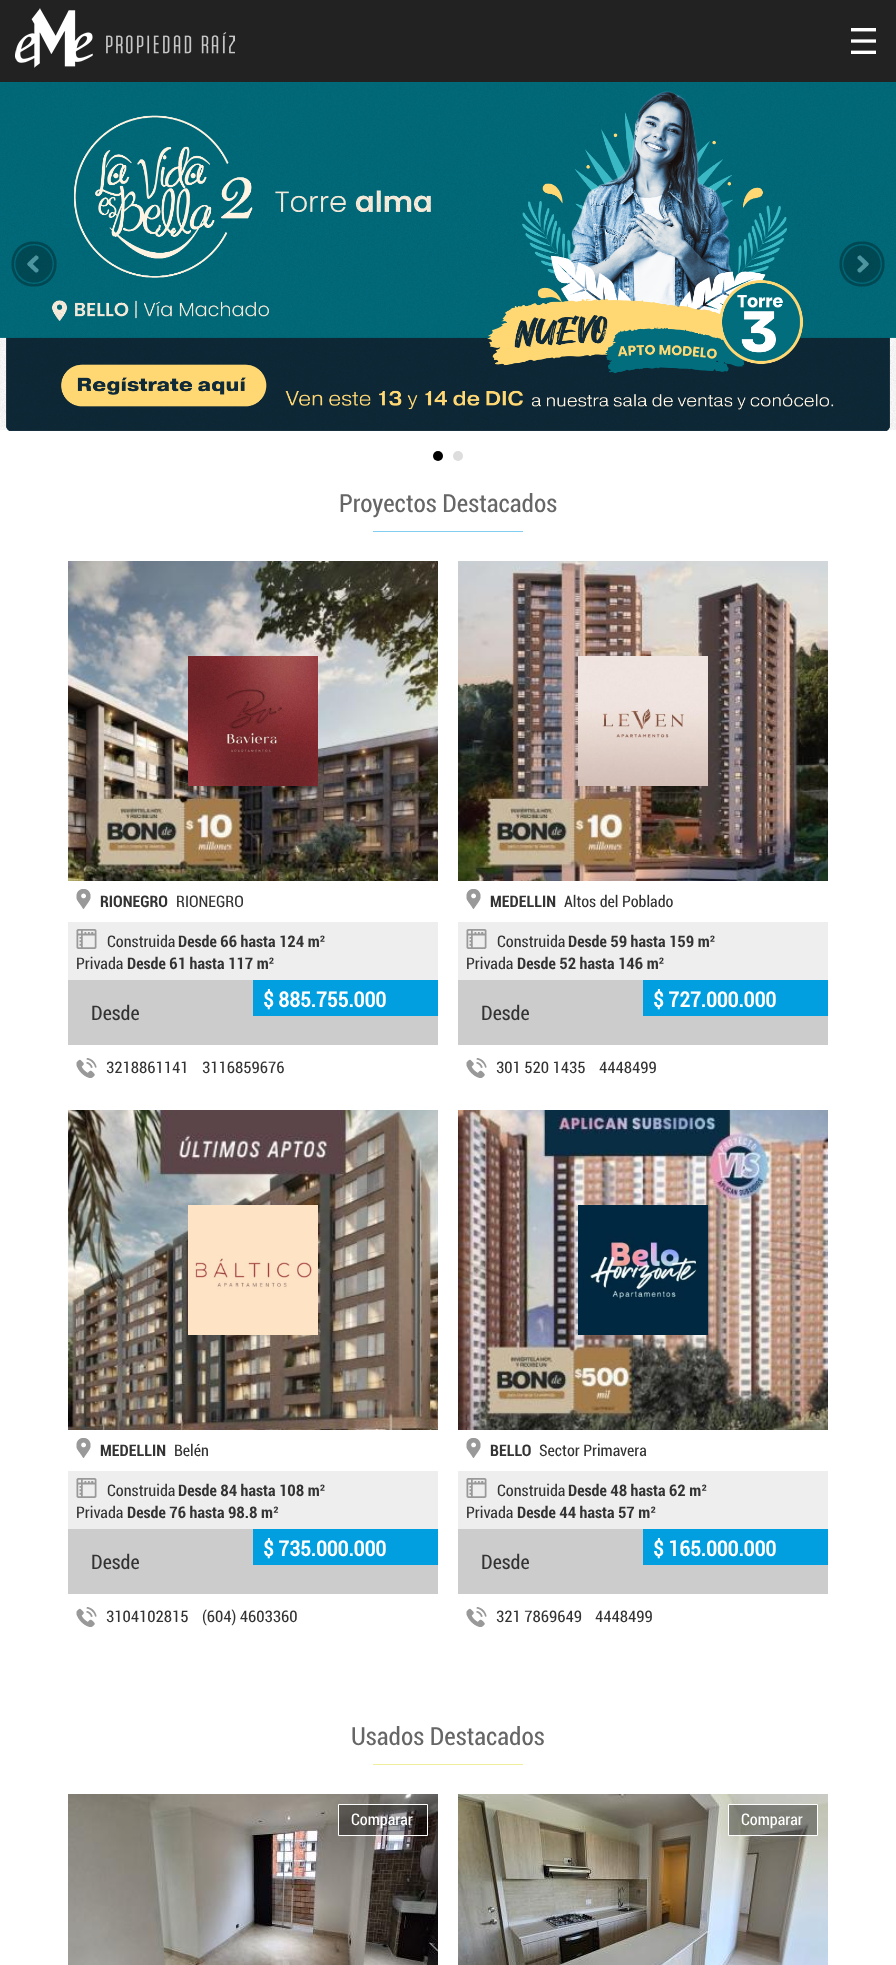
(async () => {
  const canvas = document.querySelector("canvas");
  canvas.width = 896;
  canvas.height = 1965;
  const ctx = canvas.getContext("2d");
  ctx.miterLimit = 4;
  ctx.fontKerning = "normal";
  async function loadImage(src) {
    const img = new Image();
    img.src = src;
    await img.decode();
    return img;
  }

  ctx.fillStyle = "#ffffff";
  ctx.fillRect(0, 0, 896, 1965);
  ctx.fillStyle = "#222222";
  ctx.fillRect(0, 0, 896, 82);
  ctx.drawImage(await loadImage("img/1.png"), 15, 8, 220, 60);
  ctx.drawImage(await loadImage("img/2.png"), 851, 28, 25, 26);
  ctx.drawImage(await loadImage("img/3.png"), 0, 82, 896, 349);
  ctx.drawImage(await loadImage("img/4.png"), 11, 241, 46, 46);
  ctx.drawImage(await loadImage("img/5.png"), 839, 241, 46, 46);
  ctx.fillStyle = "#000000";
  ctx.beginPath();
  ctx.arc(438, 456, 5, 0, Math.PI * 2);
  ctx.fill();
  ctx.fillStyle = "#dddddd";
  ctx.beginPath();
  ctx.arc(458, 456, 5, 0, Math.PI * 2);
  ctx.fill();
  ctx.fillStyle = "#80cff0";
  ctx.fillRect(373, 531, 150, 1);
  ctx.drawImage(await loadImage("img/6.png"), 68, 561, 370, 320);
  ctx.drawImage(await loadImage("img/7.png"), 188, 656, 130, 130);
  ctx.drawImage(await loadImage("img/8.png"), 76, 889, 15, 20);
  ctx.fillStyle = "#eeeeee";
  ctx.fillRect(68, 922, 370, 58);
  ctx.drawImage(await loadImage("img/9.png"), 76, 929, 21, 20);
  ctx.fillStyle = "#cccccc";
  ctx.fillRect(68, 980, 370, 65);
  ctx.fillStyle = "#019fe0";
  ctx.fillRect(253, 980, 185, 36);
  ctx.drawImage(await loadImage("img/10.png"), 76, 1058, 21, 20);
  ctx.drawImage(await loadImage("img/11.png"), 458, 561, 370, 320);
  ctx.drawImage(await loadImage("img/12.png"), 578, 656, 130, 130);
  ctx.drawImage(await loadImage("img/8.png"), 466, 889, 15, 20);
  ctx.fillStyle = "#eeeeee";
  ctx.fillRect(458, 922, 370, 58);
  ctx.drawImage(await loadImage("img/9.png"), 466, 929, 21, 20);
  ctx.fillStyle = "#cccccc";
  ctx.fillRect(458, 980, 370, 65);
  ctx.fillStyle = "#019fe0";
  ctx.fillRect(643, 980, 185, 36);
  ctx.drawImage(await loadImage("img/10.png"), 466, 1058, 21, 20);
  ctx.drawImage(await loadImage("img/13.png"), 68, 1110, 370, 320);
  ctx.drawImage(await loadImage("img/14.png"), 188, 1205, 130, 130);
  ctx.drawImage(await loadImage("img/8.png"), 76, 1438, 15, 20);
  ctx.fillStyle = "#eeeeee";
  ctx.fillRect(68, 1471, 370, 58);
  ctx.drawImage(await loadImage("img/9.png"), 76, 1478, 21, 20);
  ctx.fillStyle = "#cccccc";
  ctx.fillRect(68, 1529, 370, 65);
  ctx.fillStyle = "#019fe0";
  ctx.fillRect(253, 1529, 185, 36);
  ctx.drawImage(await loadImage("img/10.png"), 76, 1607, 21, 20);
  ctx.drawImage(await loadImage("img/15.png"), 458, 1110, 370, 320);
  ctx.drawImage(await loadImage("img/16.png"), 578, 1205, 130, 130);
  ctx.drawImage(await loadImage("img/8.png"), 466, 1438, 15, 20);
  ctx.fillStyle = "#eeeeee";
  ctx.fillRect(458, 1471, 370, 58);
  ctx.drawImage(await loadImage("img/9.png"), 466, 1478, 21, 20);
  ctx.fillStyle = "#cccccc";
  ctx.fillRect(458, 1529, 370, 65);
  ctx.fillStyle = "#019fe0";
  ctx.fillRect(643, 1529, 185, 36);
  ctx.drawImage(await loadImage("img/10.png"), 466, 1607, 21, 20);
  ctx.fillStyle = "#efee9d";
  ctx.fillRect(373, 1764, 150, 1);
  ctx.drawImage(await loadImage("img/17.png"), 68, 1794, 370, 171);
  ctx.fillStyle = "rgba(0, 0, 0, 0.35)";
  ctx.beginPath();
  ctx.rect(338.5, 1804.5, 89, 31);
  ctx.fill();
  ctx.strokeStyle = "#ffffff";
  ctx.stroke();
  ctx.drawImage(await loadImage("img/18.png"), 458, 1794, 370, 171);
  ctx.beginPath();
  ctx.rect(728.5, 1804.5, 89, 31);
  ctx.fill();
  ctx.stroke();
  ctx.font = "25px Roboto";
  ctx.fillStyle = "#666666";
  ctx.fillText("Proyectos Destacados", 339, 512);
  ctx.font = "bold 16px Roboto";
  ctx.fillStyle = "#333333";
  ctx.fillText("RIONEGRO", 100, 907);
  ctx.font = "16px Roboto";
  ctx.fillText("RIONEGRO", 176, 907);
  ctx.fillText("Construida", 107, 947);
  ctx.font = "bold 16px Roboto";
  ctx.fillText("Desde 66 hasta 124 m²", 178, 947);
  ctx.font = "16px Roboto";
  ctx.fillText("Privada", 76, 969);
  ctx.font = "bold 16px Roboto";
  ctx.fillText("Desde 61 hasta 117 m²", 127, 969);
  ctx.font = "bold 21px 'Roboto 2'";
  ctx.fillStyle = "#ffffff";
  ctx.fillText("$ 885.755.000", 263, 1007);
  ctx.font = "20px Roboto";
  ctx.fillStyle = "#333333";
  ctx.fillText("Desde", 91, 1020);
  ctx.font = "16px Roboto";
  ctx.fillText("3218861141", 106, 1073);
  ctx.fillText("3116859676", 202, 1073);
  ctx.font = "bold 16px Roboto";
  ctx.fillText("MEDELLIN", 490, 907);
  ctx.font = "16px Roboto";
  ctx.fillText("Altos del Poblado", 564, 907);
  ctx.fillText("Construida", 497, 947);
  ctx.font = "bold 16px Roboto";
  ctx.fillText("Desde 59 hasta 159 m²", 568, 947);
  ctx.font = "16px Roboto";
  ctx.fillText("Privada", 466, 969);
  ctx.font = "bold 16px Roboto";
  ctx.fillText("Desde 52 hasta 146 m²", 517, 969);
  ctx.font = "bold 21px 'Roboto 2'";
  ctx.fillStyle = "#ffffff";
  ctx.fillText("$ 727.000.000", 653, 1007);
  ctx.font = "20px Roboto";
  ctx.fillStyle = "#333333";
  ctx.fillText("Desde", 481, 1020);
  ctx.font = "16px Roboto";
  ctx.fillText("301 520 1435", 496, 1073);
  ctx.fillText("4448499", 599, 1073);
  ctx.font = "bold 16px Roboto";
  ctx.fillText("MEDELLIN", 100, 1456);
  ctx.font = "16px Roboto";
  ctx.fillText("Belén", 174, 1456);
  ctx.fillText("Construida", 107, 1496);
  ctx.font = "bold 16px Roboto";
  ctx.fillText("Desde 84 hasta 108 m²", 178, 1496);
  ctx.font = "16px Roboto";
  ctx.fillText("Privada", 76, 1518);
  ctx.font = "bold 16px Roboto";
  ctx.fillText("Desde 76 hasta 98.8 m²", 127, 1518);
  ctx.font = "bold 21px 'Roboto 2'";
  ctx.fillStyle = "#ffffff";
  ctx.fillText("$ 735.000.000", 263, 1556);
  ctx.font = "20px Roboto";
  ctx.fillStyle = "#333333";
  ctx.fillText("Desde", 91, 1569);
  ctx.font = "16px Roboto";
  ctx.fillText("3104102815", 106, 1622);
  ctx.fillText("(604) 4603360", 202, 1622);
  ctx.font = "bold 16px Roboto";
  ctx.fillText("BELLO", 490, 1456);
  ctx.font = "16px Roboto";
  ctx.fillText("Sector Primavera", 539, 1456);
  ctx.fillText("Construida", 497, 1496);
  ctx.font = "bold 16px Roboto";
  ctx.fillText("Desde 48 hasta 62 m²", 568, 1496);
  ctx.font = "16px Roboto";
  ctx.fillText("Privada", 466, 1518);
  ctx.font = "bold 16px Roboto";
  ctx.fillText("Desde 44 hasta 57 m²", 517, 1518);
  ctx.font = "bold 21px 'Roboto 2'";
  ctx.fillStyle = "#ffffff";
  ctx.fillText("$ 165.000.000", 653, 1556);
  ctx.font = "20px Roboto";
  ctx.fillStyle = "#333333";
  ctx.fillText("Desde", 481, 1569);
  ctx.font = "16px Roboto";
  ctx.fillText("321 7869649", 496, 1622);
  ctx.fillText("4448499", 595, 1622);
  ctx.font = "25px Roboto";
  ctx.fillStyle = "#666666";
  ctx.fillText("Usados Destacados", 351, 1745);
  ctx.font = "16px Roboto";
  ctx.fillStyle = "#ffffff";
  ctx.fillText("Comparar", 351, 1825);
  ctx.fillText("Comparar", 741, 1825);
})();
